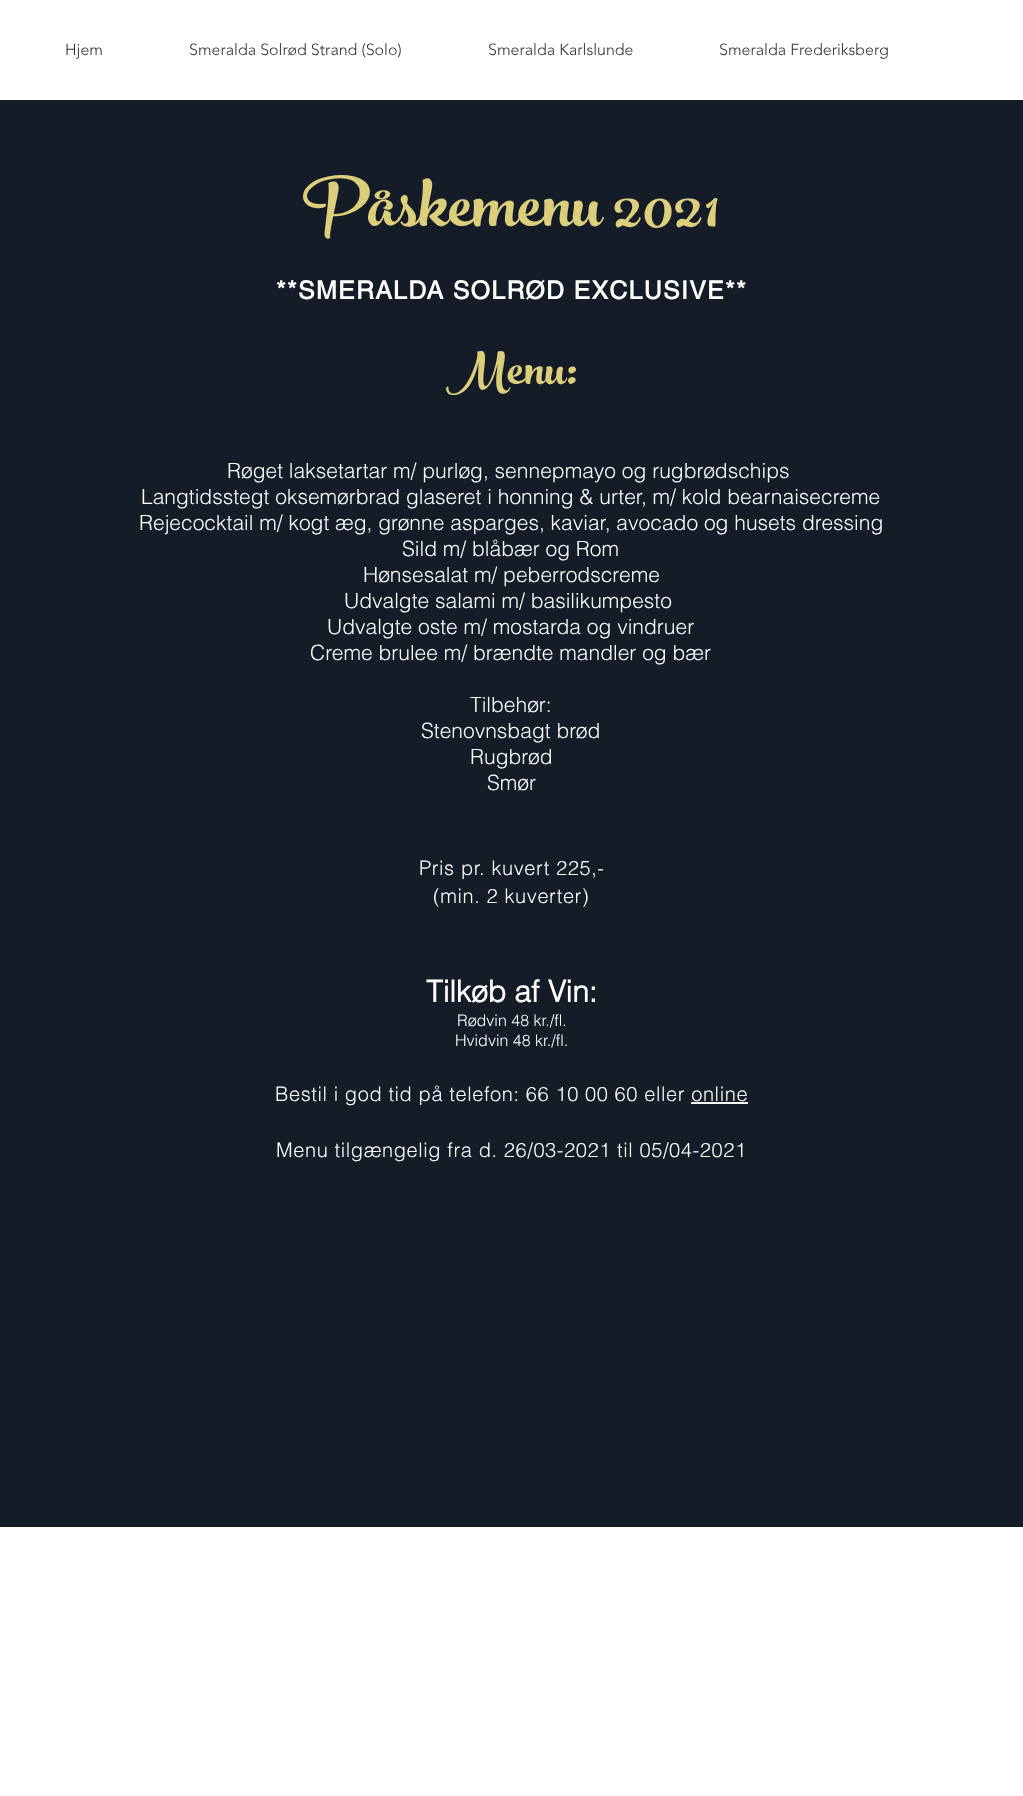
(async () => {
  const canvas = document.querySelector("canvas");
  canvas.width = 1023;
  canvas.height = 1796;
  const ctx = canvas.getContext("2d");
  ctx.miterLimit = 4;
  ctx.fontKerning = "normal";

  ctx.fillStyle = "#ffffff";
  ctx.fillRect(0, 0, 1023, 1796);
  ctx.fillStyle = "#141d27";
  ctx.fillRect(0, 100, 1023, 1427);
  ctx.fillStyle = "#ffffff";
  ctx.fillRect(691, 1102, 57, 2);
  ctx.font = "300 16px 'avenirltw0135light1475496'";
  ctx.fillStyle = "#303131";
  for (const [text, x, y] of [
    ["Hjem", 65, 55],
    ["Smeralda Solrød Strand (Solo)", 189, 55],
    ["Smeralda Karlslunde", 488, 55],
    ["Smeralda Frederiksberg", 719, 55],
  ]) {
    ctx.fillText(text, x, y);
  }
  ctx.letterSpacing = "1px";
  ctx.font = "100px 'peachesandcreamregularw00'";
  ctx.fillStyle = "#ddce7c";
  ctx.fillText("Påskemenu 2021", 303, 226);
  ctx.letterSpacing = "1.25px";
  ctx.font = "bold 25px helvetica";
  ctx.fillStyle = "#ffffff";
  ctx.fillText("**SMERALDA SOLRØD EXCLUSIVE**", 276, 299);
  ctx.letterSpacing = "0.5px";
  ctx.font = "70px 'peachesandcreamregularw00'";
  ctx.fillStyle = "#ddce7c";
  ctx.fillText("Menu:", 446, 384);
  ctx.letterSpacing = "0px";
  ctx.font = "300 21px helvetica";
  ctx.fillStyle = "#ffffff";
  for (const [text, x, y] of [
    ["Røget laksetartar m/ purløg, sennepmayo og rugbrødschips", 227, 478],
    ["Langtidsstegt oksemørbrad glaseret i honning & urter, m/ kold bearnaisecreme", 141, 504],
    ["Rejecocktail m/ kogt æg, grønne asparges, kaviar, avocado og husets dressing", 139, 530],
    ["Sild m/ blåbær og Rom", 402, 556],
    ["Hønsesalat m/ peberrodscreme", 363, 582],
    ["Udvalgte salami m/ basilikumpesto", 344, 608],
    ["Udvalgte oste m/ mostarda og vindruer", 327, 634],
    ["Creme brulee m/ brændte mandler og bær", 310, 660],
    ["Tilbehør:", 470, 712],
    ["Stenovnsbagt brød", 421, 738],
    ["Rugbrød", 470, 764],
    ["Smør", 487, 790],
  ]) {
    ctx.fillText(text, x, y);
  }
  ctx.letterSpacing = "0.6px";
  ctx.font = "300 20px helvetica";
  ctx.fillText("Pris pr. kuvert 225,-", 419, 875);
  ctx.fillText("(min. 2 kuverter)", 433, 903);
  ctx.letterSpacing = "0px";
  ctx.font = "bold 30px 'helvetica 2'";
  ctx.fillText("Tilkøb af Vin:", 426, 1002);
  ctx.font = "300 16px helvetica";
  ctx.fillText("Rødvin 48 kr./fl.", 457, 1026);
  ctx.fillText("Hvidvin 48 kr./fl.", 455, 1046);
  ctx.letterSpacing = "0.6px";
  ctx.font = "300 20px helvetica";
  ctx.fillText("Bestil i god tid på telefon: 66 10 00 60 eller online", 275, 1101);
  ctx.fillText("Menu tilgængelig fra d. 26/03-2021 til 05/04-2021", 276, 1157);
})();
